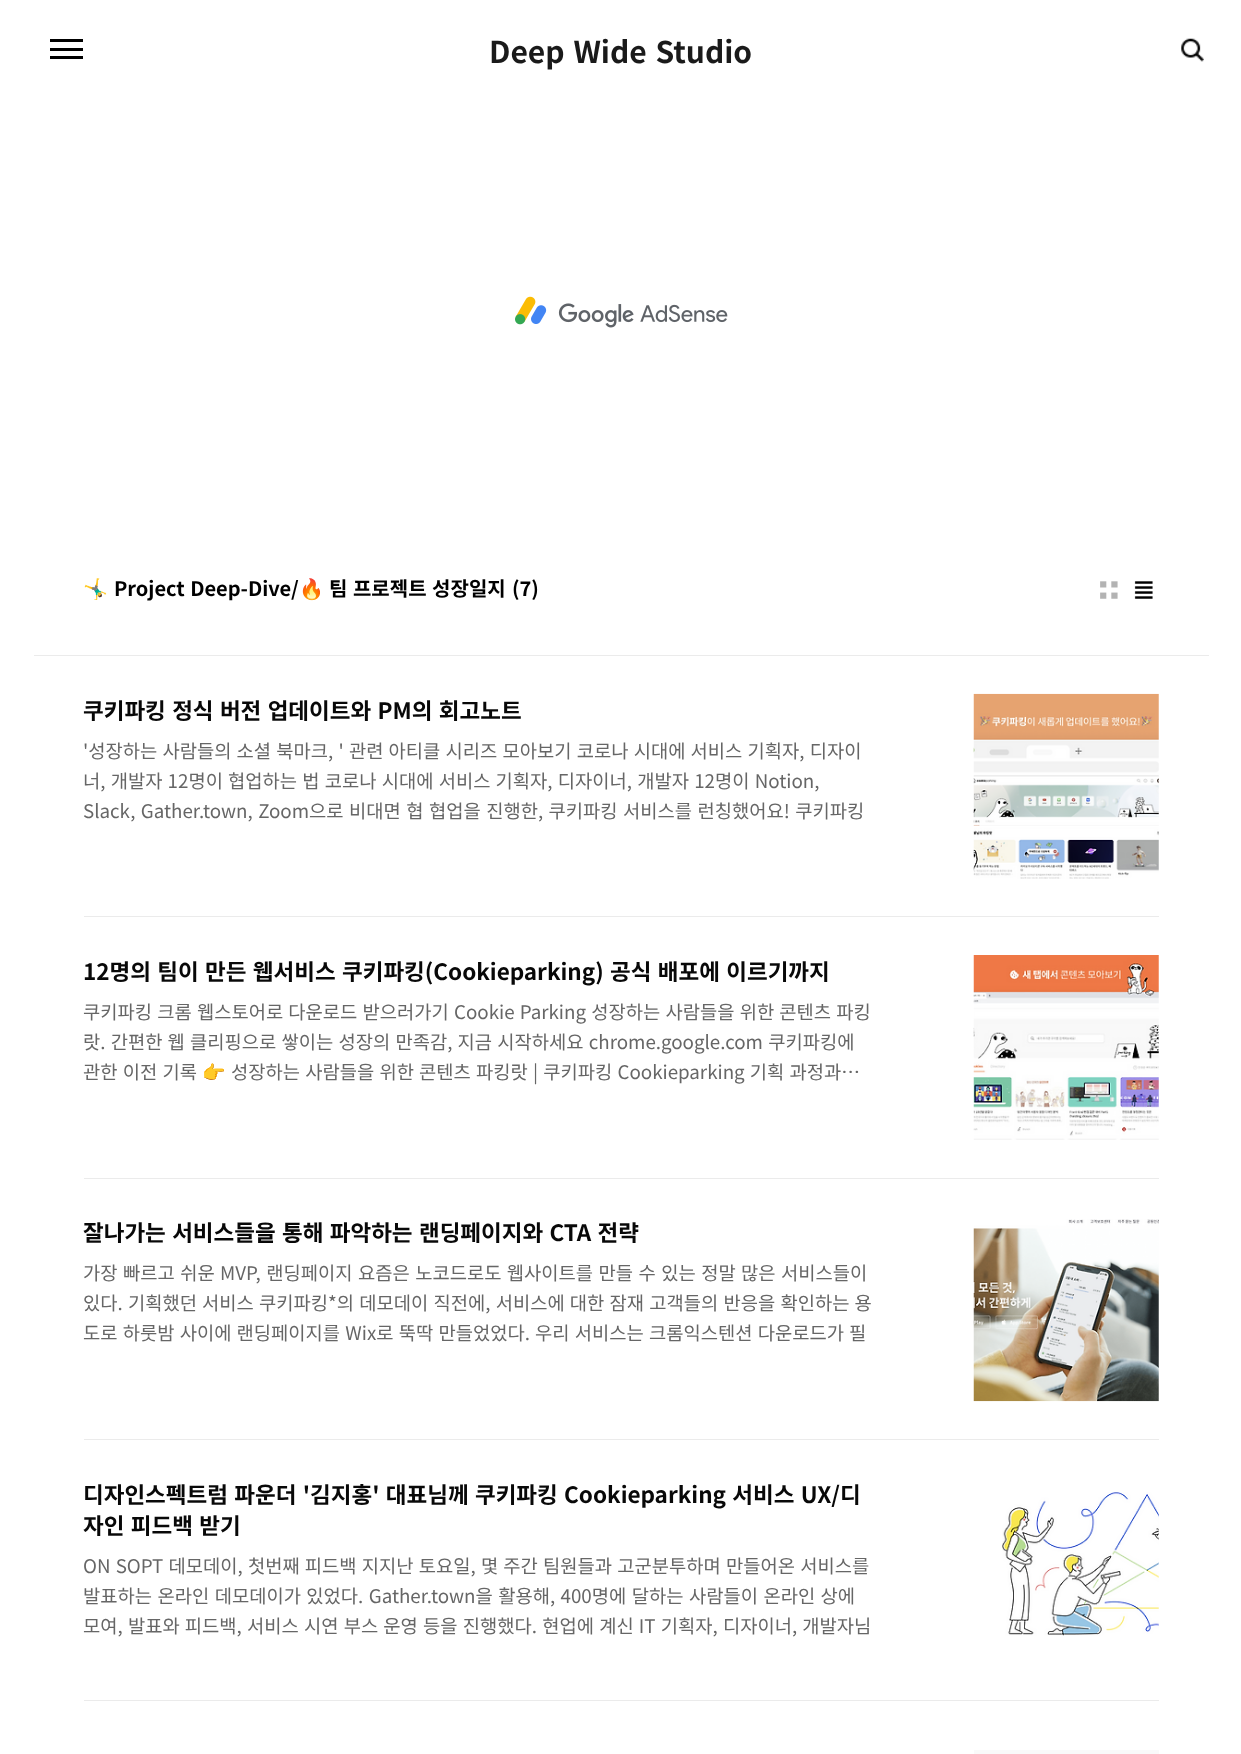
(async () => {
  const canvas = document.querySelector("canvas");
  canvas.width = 1241;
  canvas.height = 1754;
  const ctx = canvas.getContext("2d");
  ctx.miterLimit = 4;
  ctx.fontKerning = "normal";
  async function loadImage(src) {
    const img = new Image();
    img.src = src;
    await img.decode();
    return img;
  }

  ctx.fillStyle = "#ffffff";
  ctx.fillRect(0, 0, 1241, 1754);
  for (const [x, y, w, h, color] of [
    [50, 39, 33, 3, "#000000"],
    [50, 48, 33, 3, "#000000"],
    [50, 56, 33, 3, "#000000"],
  ]) {
    ctx.fillStyle = color;
    ctx.fillRect(x, y, w, h);
  }
  ctx.drawImage(await loadImage("img/1.png"), 1181, 38, 23, 24);
  ctx.drawImage(await loadImage("img/2.png"), 515, 296, 213, 32);
  ctx.fillStyle = "#ebebeb";
  ctx.fillRect(34, 655, 1175, 1);
  ctx.drawImage(await loadImage("img/3.png"), 1100, 581, 18, 18);
  ctx.drawImage(await loadImage("img/4.png"), 1134, 581, 19, 18);
  ctx.fillRect(84, 916, 1075, 1);
  ctx.drawImage(await loadImage("img/5.png"), 973, 693, 186, 186);
  ctx.fillRect(84, 1178, 1075, 1);
  ctx.drawImage(await loadImage("img/6.png"), 973, 955, 186, 185);
  ctx.fillRect(84, 1439, 1075, 1);
  ctx.drawImage(await loadImage("img/7.png"), 973, 1219, 186, 183);
  ctx.fillRect(84, 1700, 1075, 1);
  ctx.drawImage(await loadImage("img/8.png"), 1002, 1492, 157, 144);
  ctx.fillStyle = "#f9f9f9";
  ctx.fillRect(974, 1750, 185, 4);
  ctx.wordSpacing = "2px";
  ctx.font = "bold 30px Noto Sans KR";
  ctx.fillStyle = "#1a1a1a";
  ctx.fillText("Deep Wide Studio", 489, 63);
  ctx.wordSpacing = "0px";
  ctx.font = "bold 20px Noto Color Emoji";
  ctx.fillStyle = "#000000";
  ctx.fillText("🤸‍♂️", 83, 596);
  ctx.wordSpacing = "1px";
  ctx.font = "bold 20px Noto Sans KR";
  ctx.fillText("Project Deep-Dive/", 114, 596);
  ctx.wordSpacing = "0px";
  ctx.font = "bold 20px Noto Color Emoji";
  ctx.fillText("🔥", 299, 596);
  ctx.wordSpacing = "1px";
  ctx.font = "bold 20px Noto Sans KR";
  ctx.fillText("팀 프로젝트 성장일지", 329, 596);
  ctx.wordSpacing = "0px";
  ctx.fillText("(7)", 512, 596);
  ctx.wordSpacing = "1.25px";
  ctx.font = "bold 22.5px Noto Sans KR";
  ctx.fillStyle = "#080808";
  ctx.fillText("쿠키파킹 정식 버전 업데이트와 PM의 회고노트", 83, 719);
  ctx.wordSpacing = "1px";
  ctx.font = "18.75px Noto Sans KR";
  ctx.fillStyle = "#666666";
  ctx.fillText("'성장하는 사람들의 소셜 북마크, ' 관련 아티클 시리즈 모아보기 코로나 시대에 서비스 기획자, 디자이", 83, 758);
  ctx.fillText("너, 개발자 12명이 협업하는 법 코로나 시대에 서비스 기획자, 디자이너, 개발자 12명이 Notion,", 83, 788);
  ctx.wordSpacing = "1.25px";
  ctx.fillText("Slack, Gather.town, Zoom으로 비대면 협 협업을 진행한, 쿠키파킹 서비스를 런칭했어요! 쿠키파킹", 83, 818);
  ctx.font = "bold 22.5px Noto Sans KR";
  ctx.fillStyle = "#080808";
  ctx.fillText("12명의 팀이 만든 웹서비스 쿠키파킹(Cookieparking) 공식 배포에 이르기까지", 83, 980);
  ctx.wordSpacing = "1px";
  ctx.font = "18.75px Noto Sans KR";
  ctx.fillStyle = "#666666";
  for (const [text, x, y] of [
    ["쿠키파킹 크롬 웹스토어로 다운로드 받으러가기 Cookie Parking 성장하는 사람들을 위한 콘텐츠 파킹", 83, 1019],
    ["랏. 간편한 웹 클리핑으로 쌓이는 성장의 만족감, 지금 시작하세요 chrome.google.com 쿠키파킹에", 83, 1049],
    ["관한 이전 기록", 83, 1079],
  ]) {
    ctx.fillText(text, x, y);
  }
  ctx.wordSpacing = "0px";
  ctx.font = "18.75px Noto Color Emoji";
  ctx.fillText("👉", 202, 1079);
  ctx.wordSpacing = "1px";
  ctx.font = "18.75px Noto Sans KR";
  ctx.fillText("성장하는 사람들을 위한 콘텐츠 파킹랏 | 쿠키파킹 Cookieparking 기획 과정과…", 231, 1079);
  ctx.wordSpacing = "1.25px";
  ctx.font = "bold 22.5px Noto Sans KR";
  ctx.fillStyle = "#080808";
  ctx.fillText("잘나가는 서비스들을 통해 파악하는 랜딩페이지와 CTA 전략", 83, 1241);
  ctx.font = "18.75px Noto Sans KR";
  ctx.fillStyle = "#666666";
  ctx.fillText("가장 빠르고 쉬운 MVP, 랜딩페이지 요즘은 노코드로도 웹사이트를 만들 수 있는 정말 많은 서비스들이", 83, 1280);
  ctx.wordSpacing = "1px";
  ctx.fillText("있다. 기획했던 서비스 쿠키파킹*의 데모데이 직전에, 서비스에 대한 잠재 고객들의 반응을 확인하는 용", 83, 1310);
  ctx.fillText("도로 하룻밤 사이에 랜딩페이지를 Wix로 뚝딱 만들었었다. 우리 서비스는 크롬익스텐션 다운로드가 필", 83, 1340);
  ctx.wordSpacing = "1.25px";
  ctx.font = "bold 22.5px Noto Sans KR";
  ctx.fillStyle = "#080808";
  ctx.fillText("디자인스펙트럼 파운더 '김지홍' 대표님께 쿠키파킹 Cookieparking 서비스 UX/디", 83, 1503);
  ctx.fillText("자인 피드백 받기", 83, 1534);
  ctx.wordSpacing = "1px";
  ctx.font = "18.75px Noto Sans KR";
  ctx.fillStyle = "#666666";
  ctx.fillText("ON SOPT 데모데이, 첫번째 피드백 지지난 토요일, 몇 주간 팀원들과 고군분투하며 만들어온 서비스를", 83, 1573);
  ctx.wordSpacing = "1.25px";
  ctx.fillText("발표하는 온라인 데모데이가 있었다. Gather.town을 활용해, 400명에 달하는 사람들이 온라인 상에", 83, 1603);
  ctx.wordSpacing = "1px";
  ctx.fillText("모여, 발표와 피드백, 서비스 시연 부스 운영 등을 진행했다. 현업에 계신 IT 기획자, 디자이너, 개발자님", 83, 1633);
})();
